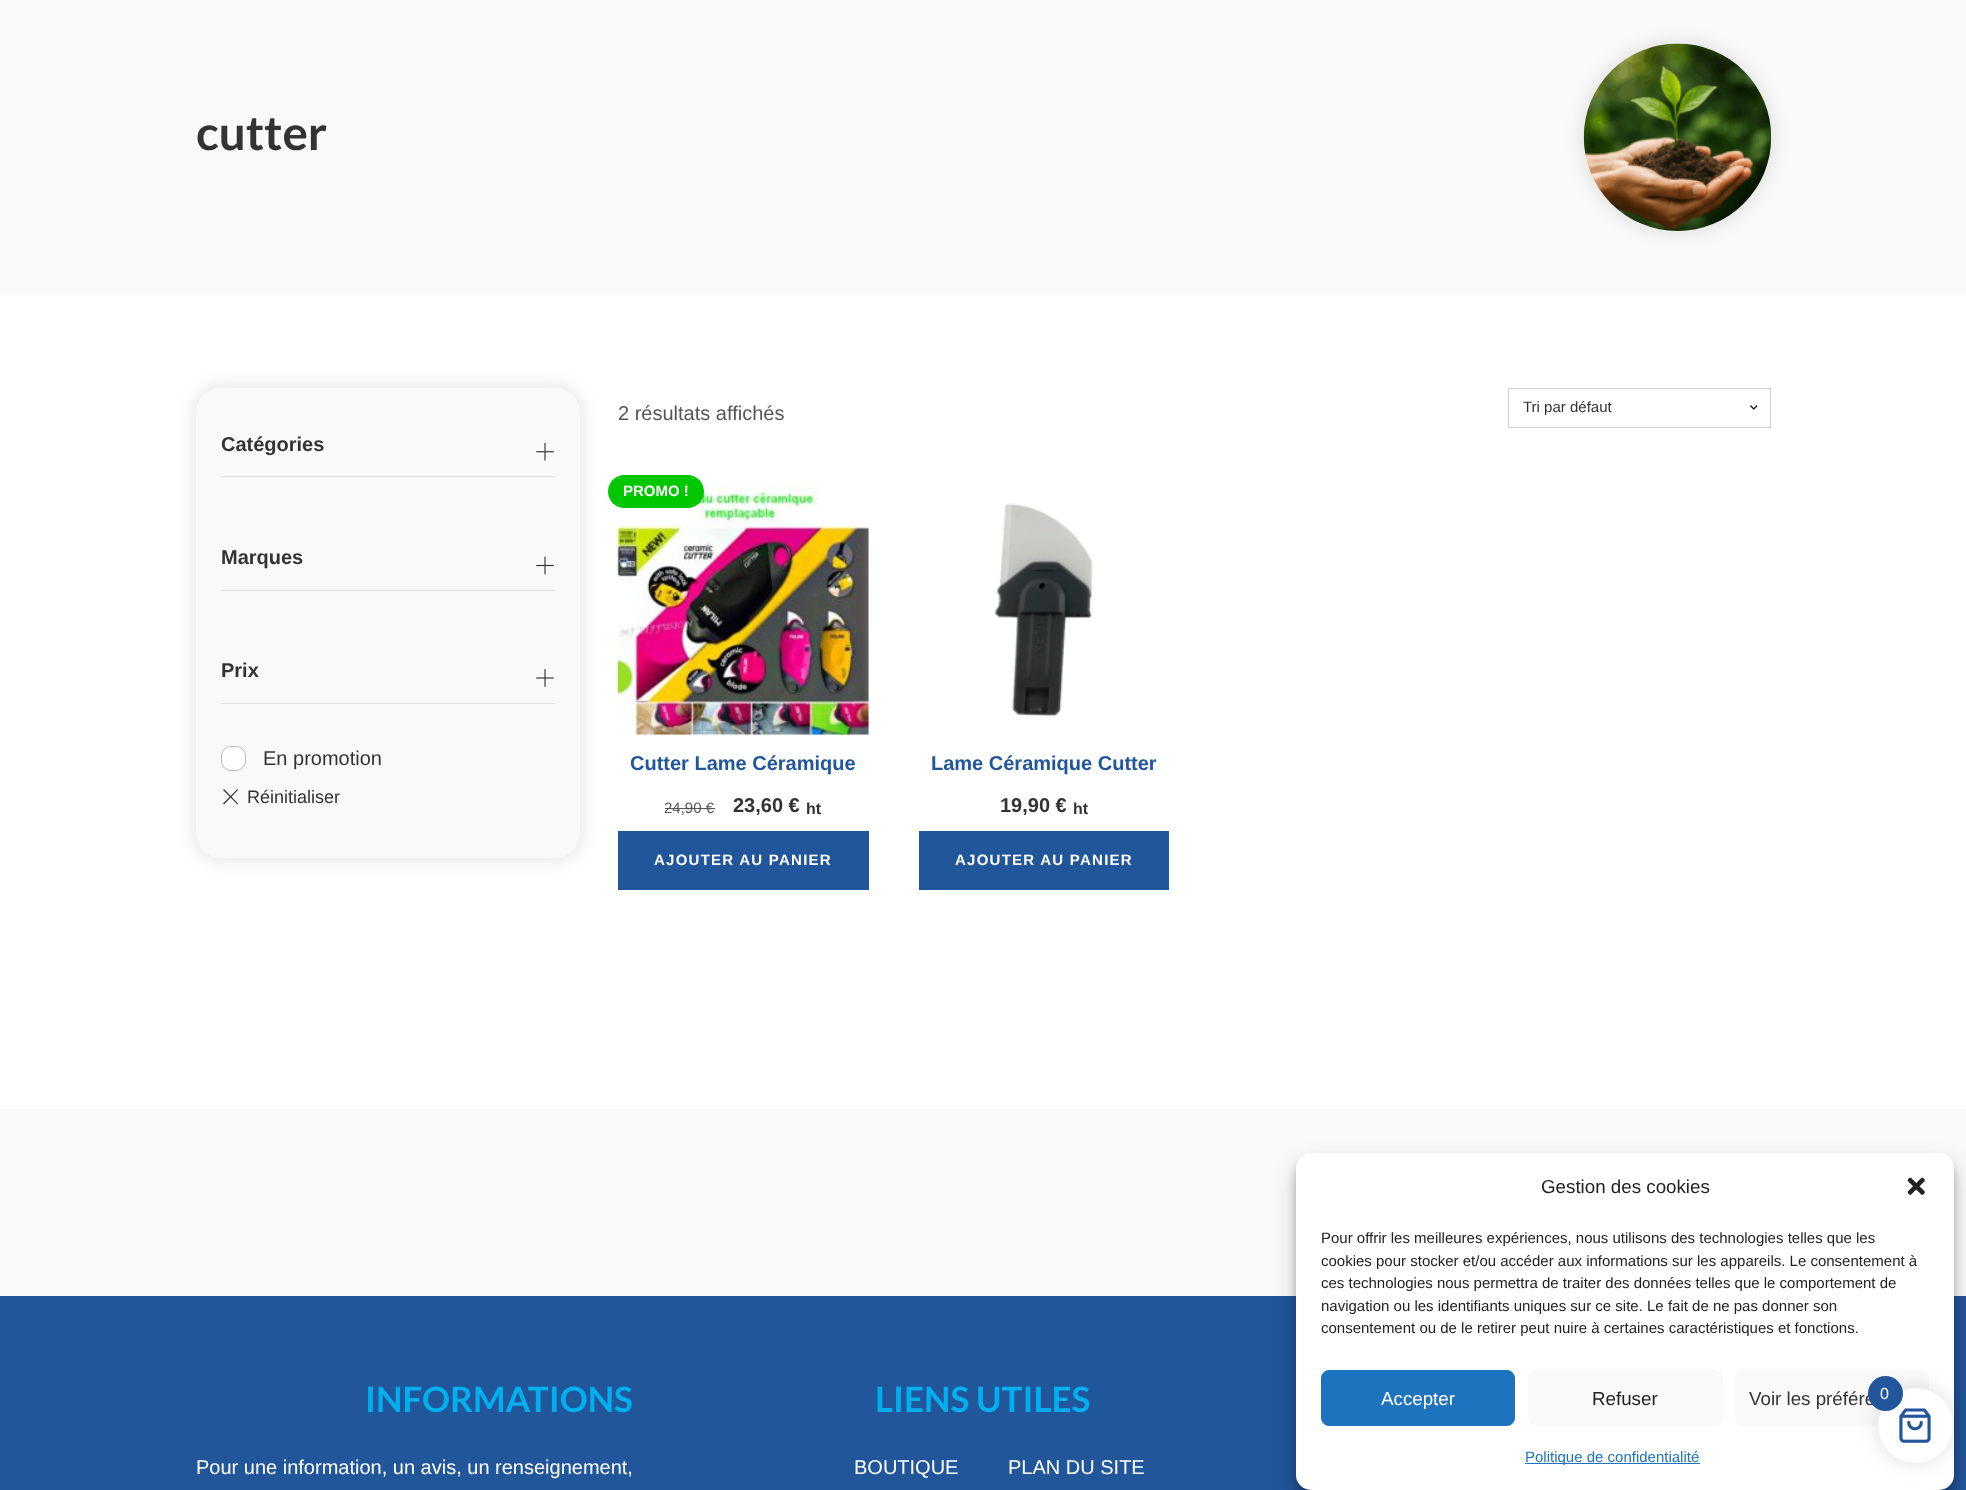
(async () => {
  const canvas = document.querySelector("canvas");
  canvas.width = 1966;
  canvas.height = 1490;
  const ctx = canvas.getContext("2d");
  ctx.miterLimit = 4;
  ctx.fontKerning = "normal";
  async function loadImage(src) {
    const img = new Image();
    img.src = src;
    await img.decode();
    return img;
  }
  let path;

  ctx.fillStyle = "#ffffff";
  ctx.fillRect(0, 0, 1966, 1490);
  ctx.fillStyle = "#f9f9f9";
  ctx.fillRect(0, 0, 1966, 294);
  ctx.fillStyle = "rgba(0, 0, 0, 0.08)";
  ctx.filter = "blur(7.5px)";
  ctx.beginPath();
  ctx.roundRect(1579, 39, 197, 197, 98.5);
  ctx.fill();
  ctx.filter = "none";
  ctx.drawImage(await loadImage("img/1.png"), 1583, 43, 189, 188);
  ctx.filter = "blur(7.5px)";
  ctx.beginPath();
  ctx.roundRect(191, 383, 394, 480, 30);
  ctx.fill();
  ctx.filter = "none";
  ctx.fillStyle = "#f9f9f9";
  ctx.beginPath();
  ctx.roundRect(196, 388, 384, 470, 25);
  ctx.fill();
  ctx.fillStyle = "#e0e0e0";
  ctx.fillRect(221, 476, 334, 1);
  ctx.drawImage(await loadImage("img/2.png"), 536, 442, 18, 19);
  ctx.fillRect(221, 590, 334, 1);
  ctx.drawImage(await loadImage("img/3.png"), 536, 556, 18, 19);
  ctx.fillRect(221, 703, 334, 1);
  ctx.drawImage(await loadImage("img/4.png"), 536, 669, 18, 18);
  ctx.fillStyle = "#ffffff";
  ctx.beginPath();
  ctx.roundRect(221.5, 746.5, 24, 24, 9.5);
  ctx.fill();
  ctx.strokeStyle = "#b4b9be";
  ctx.stroke();
  ctx.fillStyle = "#333333";
  path = new Path2D("M223 803.5L237.5 789L238 790L224 804.5Z");
  ctx.fill(path);
  path = new Path2D("M224 789L238 803.5L237.5 804.5L223 790Z");
  ctx.fill(path);
  ctx.drawImage(await loadImage("img/5.png"), 1750, 405, 8, 5);
  ctx.strokeStyle = "#d3ced2";
  ctx.strokeRect(1508.5, 388.5, 262, 39);
  ctx.drawImage(await loadImage("img/6.png"), 617, 485, 252, 250);
  ctx.fillStyle = "#00c700";
  ctx.beginPath();
  ctx.roundRect(608, 475, 96, 33, 16.5);
  ctx.fill();
  ctx.fillStyle = "#555555";
  ctx.fillRect(665, 808, 50, 1);
  ctx.fillStyle = "#22569b";
  ctx.fillRect(618, 831, 251, 59);
  ctx.drawImage(await loadImage("img/7.png"), 994, 503, 99, 214);
  for (const [x, y, w, h, color] of [
    [919, 831, 250, 59, "#22569b"],
    [0, 1109, 1966, 187, "#f9f9f9"],
    [0, 1296, 1966, 194, "#22569b"],
  ]) {
    ctx.fillStyle = color;
    ctx.fillRect(x, y, w, h);
  }
  ctx.fillStyle = "rgba(0, 0, 0, 0.23)";
  ctx.filter = "blur(4px)";
  ctx.beginPath();
  ctx.roundRect(1296, 1160, 658, 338, 15);
  ctx.fill();
  ctx.filter = "none";
  ctx.fillStyle = "rgba(0, 0, 0, 0.19)";
  ctx.filter = "blur(12.5px)";
  ctx.beginPath();
  ctx.roundRect(1296, 1165, 658, 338, 15);
  ctx.fill();
  ctx.filter = "none";
  ctx.fillStyle = "#ffffff";
  ctx.beginPath();
  ctx.roundRect(1296, 1153, 658, 337, 15);
  ctx.fill();
  ctx.drawImage(await loadImage("img/8.png"), 1907, 1177, 18, 18);
  ctx.fillStyle = "#1e73be";
  ctx.beginPath();
  ctx.roundRect(1321.5, 1370.5, 193, 55, 7.5);
  ctx.fill();
  ctx.strokeStyle = "#1e73be";
  ctx.stroke();
  ctx.fillStyle = "#f9f9f9";
  ctx.beginPath();
  ctx.roundRect(1528, 1370, 195, 56, 8);
  ctx.fill();
  ctx.beginPath();
  ctx.roundRect(1735, 1370, 194, 56, 8);
  ctx.fill();
  ctx.fillStyle = "#1e73be";
  ctx.fillRect(1525, 1463, 175, 1);
  ctx.fillStyle = "rgba(0, 0, 0, 0.1)";
  ctx.filter = "blur(9.5px)";
  ctx.beginPath();
  ctx.roundRect(1875, 1385, 80, 80, 40);
  ctx.fill();
  ctx.filter = "none";
  ctx.fillStyle = "#ffffff";
  ctx.beginPath();
  ctx.arc(1915.5, 1425.5, 37.5, 0, Math.PI * 2);
  ctx.fill();
  ctx.drawImage(await loadImage("img/9.png"), 1899, 1408, 32, 35);
  ctx.font = "bold 47.5px Lato";
  ctx.fillStyle = "#333333";
  ctx.fillText("cutter", 196, 150);
  ctx.font = "bold 20px Liberation Sans";
  for (const [text, x, y] of [
    ["Catégories", 221, 451],
    ["Marques", 221, 564],
    ["Prix", 221, 677],
  ]) {
    ctx.fillText(text, x, y);
  }
  ctx.font = "20px Liberation Sans";
  ctx.fillText("En promotion", 263, 765);
  ctx.font = "18px Liberation Sans";
  ctx.fillText("Réinitialiser", 247, 803);
  ctx.font = "20px Liberation Sans";
  ctx.fillStyle = "#555555";
  ctx.fillText("2 résultats affichés", 618, 420);
  ctx.font = "15px Liberation Sans";
  ctx.fillStyle = "#333333";
  ctx.fillText("Tri par défaut", 1523, 412);
  ctx.font = "bold 15px Liberation Sans";
  ctx.fillStyle = "#ffffff";
  ctx.fillText("PROMO !", 623, 496);
  ctx.font = "bold 20px Liberation Sans";
  ctx.fillStyle = "#22569b";
  ctx.fillText("Cutter Lame Céramique", 630, 770);
  ctx.font = "15px Liberation Sans";
  ctx.fillStyle = "#555555";
  ctx.fillText("24,90 €", 664, 813);
  ctx.font = "bold 20px Liberation Sans";
  ctx.fillStyle = "#333333";
  ctx.fillText("23,60 €", 733, 812);
  ctx.font = "bold 16px Liberation Sans";
  ctx.fillText("ht", 806, 814);
  ctx.letterSpacing = "1.25px";
  ctx.font = "bold 15px Liberation Sans";
  ctx.fillStyle = "#ffffff";
  ctx.fillText("AJOUTER AU PANIER", 654, 865);
  ctx.letterSpacing = "0px";
  ctx.font = "bold 20px Liberation Sans";
  ctx.fillStyle = "#22569b";
  ctx.fillText("Lame Céramique Cutter", 931, 770);
  ctx.fillStyle = "#333333";
  ctx.fillText("19,90 €", 1000, 812);
  ctx.font = "bold 16px Liberation Sans";
  ctx.fillText("ht", 1073, 814);
  ctx.letterSpacing = "1.25px";
  ctx.font = "bold 15px Liberation Sans";
  ctx.fillStyle = "#ffffff";
  ctx.fillText("AJOUTER AU PANIER", 955, 865);
  ctx.letterSpacing = "0px";
  ctx.font = "bold 35px Lato";
  ctx.fillStyle = "#01afef";
  ctx.fillText("INFORMATIONS", 365, 1412);
  ctx.font = "20px Liberation Sans";
  ctx.fillStyle = "#ffffff";
  ctx.fillText("Pour une information, un avis, un renseignement,", 196, 1474);
  ctx.font = "bold 35px Lato";
  ctx.fillStyle = "#01afef";
  ctx.fillText("LIENS UTILES", 875, 1412);
  ctx.font = "20px Liberation Sans";
  ctx.fillStyle = "#ffffff";
  ctx.fillText("BOUTIQUE", 854, 1474);
  ctx.fillText("PLAN DU SITE", 1008, 1474);
  ctx.font = "18.75px Liberation Sans";
  ctx.fillStyle = "#222222";
  ctx.fillText("Gestion des cookies", 1541, 1193);
  ctx.font = "15px Liberation Sans";
  for (const [text, x, y] of [
    ["Pour offrir les meilleures expériences, nous utilisons des technologies telles que les", 1321, 1243],
    ["cookies pour stocker et/ou accéder aux informations sur les appareils. Le consentement à", 1321, 1266],
    ["ces technologies nous permettra de traiter des données telles que le comportement de", 1321, 1288],
    ["navigation ou les identifiants uniques sur ce site. Le fait de ne pas donner son", 1321, 1311],
    ["consentement ou de le retirer peut nuire à certaines caractéristiques et fonctions.", 1321, 1333],
  ]) {
    ctx.fillText(text, x, y);
  }
  ctx.font = "18.75px Liberation Sans";
  ctx.fillStyle = "#ffffff";
  ctx.fillText("Accepter", 1381, 1405);
  ctx.fillStyle = "#222222";
  ctx.fillText("Refuser", 1592, 1405);
  ctx.fillStyle = "#333333";
  ctx.fillText("Voir les préfére", 1749, 1405);
  ctx.font = "15px Liberation Sans";
  ctx.fillStyle = "#1e73be";
  ctx.fillText("Politique de confidentialité", 1525, 1462);
  ctx.fillStyle = "#22569b";
  ctx.beginPath();
  ctx.arc(1885.5, 1393.5, 17.5, 0, Math.PI * 2);
  ctx.fill();
  ctx.font = "16px Liberation Sans";
  ctx.fillStyle = "#ffffff";
  ctx.fillText("0", 1880, 1399);
})();
